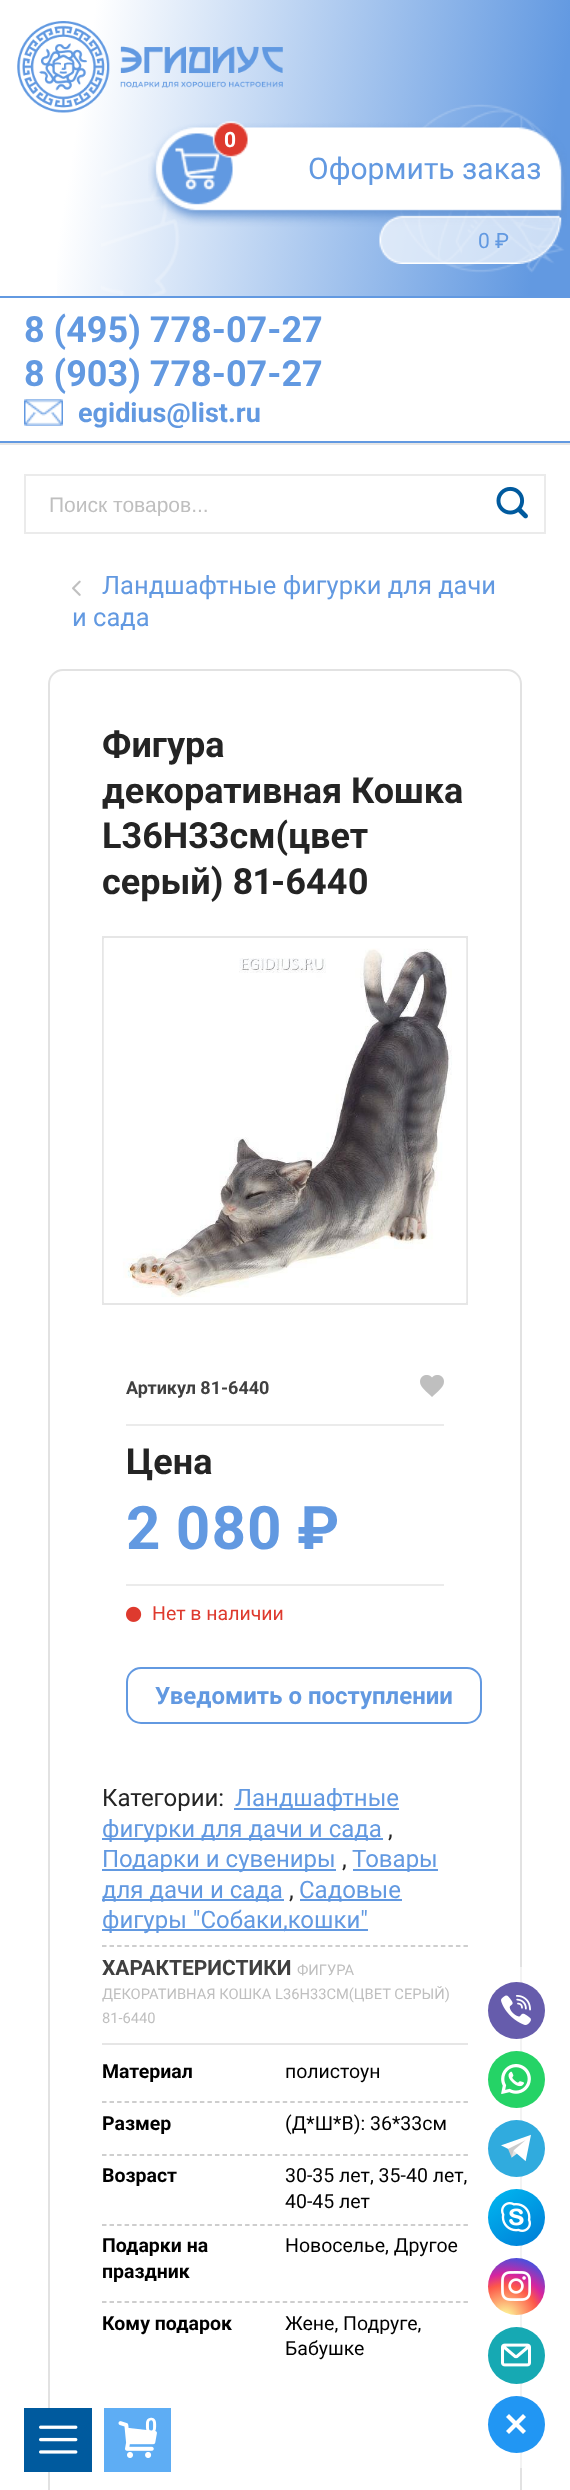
(async () => {
  const canvas = document.querySelector("canvas");
  canvas.width = 570;
  canvas.height = 2490;
  const ctx = canvas.getContext("2d");
  ctx.miterLimit = 4;
  ctx.fontKerning = "normal";
  async function loadImage(src) {
    const img = new Image();
    img.src = src;
    await img.decode();
    return img;
  }
  let gradient, path;

  ctx.fillStyle = "#ffffff";
  ctx.fillRect(0, 0, 570, 2490);
  gradient = ctx.createLinearGradient(-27, 172, 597, 271);
  gradient.addColorStop(0.15, "#ffffff");
  gradient.addColorStop(0.9, "#6299e1");
  ctx.fillStyle = gradient;
  ctx.fillRect(57, 0, 513, 296);
  ctx.fillStyle = "#e6e6e6";
  ctx.fillRect(0, 443, 570, 2);
  ctx.drawImage(await loadImage("img/1.png"), 101, 104, 464, 192);
  ctx.drawImage(await loadImage("img/2.png"), 17, 21, 266, 92);
  ctx.drawImage(await loadImage("img/3.png"), 148, 121, 419, 143);
  ctx.fillStyle = "#6299e1";
  ctx.fillRect(0, 296, 570, 2);
  ctx.fillRect(0, 441, 570, 2);
  ctx.drawImage(await loadImage("img/4.png"), 24, 399, 39, 27);
  ctx.strokeStyle = "#ebebeb";
  ctx.lineWidth = 2;
  ctx.strokeRect(25, 475, 520, 58);
  ctx.drawImage(await loadImage("img/5.png"), 496, 486, 32, 33);
  ctx.drawImage(await loadImage("img/6.png"), 72, 580, 9, 16);
  ctx.beginPath();
  ctx.roundRect(49, 670, 472, 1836, 14);
  ctx.strokeStyle = "#e2e2e2";
  ctx.stroke();
  ctx.strokeStyle = "#e6e6e6";
  ctx.strokeRect(103, 937, 364, 367);
  ctx.drawImage(await loadImage("img/7.png"), 103, 939, 364, 363);
  ctx.fillStyle = "#ebebeb";
  ctx.fillRect(126, 1424, 318, 2);
  ctx.drawImage(await loadImage("img/8.png"), 420, 1375, 24, 22);
  ctx.fillRect(126, 1584, 318, 2);
  ctx.drawImage(await loadImage("img/9.png"), 126, 1606, 16, 16);
  ctx.beginPath();
  ctx.roundRect(127, 1668, 354, 55, 14);
  ctx.strokeStyle = "#6299e1";
  ctx.stroke();
  path = new Path2D("M102 1946H468");
  ctx.strokeStyle = "#bfbfbf";
  ctx.lineWidth = 1.5;
  ctx.setLineDash([4.5, 3.03]);
  ctx.stroke(path);
  for (const [x, y, w, h, color] of [
    [234, 1808, 165, 2, "#6299e1"],
    [102, 1838, 281, 2, "#6299e1"],
    [102, 1869, 234, 2, "#6299e1"],
    [353, 1869, 85, 2, "#6299e1"],
    [102, 1899, 182, 2, "#6299e1"],
    [300, 1899, 102, 2, "#6299e1"],
    [102, 1929, 266, 2, "#6299e1"],
    [102, 2043, 366, 2, "#e6e6e6"],
  ]) {
    ctx.fillStyle = color;
    ctx.fillRect(x, y, w, h);
  }
  path = new Path2D("M102 2102H468");
  ctx.stroke(path);
  path = new Path2D("M102 2155H468");
  ctx.stroke(path);
  path = new Path2D("M102 2225H468");
  ctx.stroke(path);
  path = new Path2D("M102 2302H468");
  ctx.stroke(path);
  ctx.fillStyle = "#005a9e";
  ctx.fillRect(24, 2408, 68, 64);
  ctx.drawImage(await loadImage("img/10.png"), 39, 2425, 39, 29);
  ctx.fillStyle = "#5eadf4";
  ctx.fillRect(104, 2408, 67, 64);
  ctx.drawImage(await loadImage("img/11.png"), 118, 2421, 39, 37);
  ctx.fillStyle = "rgba(255, 255, 255, 0.6)";
  ctx.beginPath();
  ctx.roundRect(473, 1967, 87, 501, 9);
  ctx.fill();
  ctx.fillStyle = "#665cac";
  ctx.beginPath();
  ctx.arc(516.5, 2010.5, 28.5, 0, Math.PI * 2);
  ctx.fill();
  ctx.drawImage(await loadImage("img/12.png"), 501, 1995, 30, 30);
  ctx.fillStyle = "#25d366";
  ctx.beginPath();
  ctx.arc(516.5, 2079.5, 28.5, 0, Math.PI * 2);
  ctx.fill();
  ctx.drawImage(await loadImage("img/13.png"), 501, 2064, 30, 30);
  ctx.fillStyle = "#30abde";
  ctx.beginPath();
  ctx.arc(516.5, 2148.5, 28.5, 0, Math.PI * 2);
  ctx.fill();
  ctx.drawImage(await loadImage("img/14.png"), 501, 2134, 30, 28);
  gradient = ctx.createLinearGradient(493, 2184, 539, 2250);
  gradient.addColorStop(0, "#00baf1");
  gradient.addColorStop(1, "#007bd6");
  ctx.fillStyle = gradient;
  ctx.beginPath();
  ctx.arc(516.5, 2217.5, 28.5, 0, Math.PI * 2);
  ctx.fill();
  ctx.drawImage(await loadImage("img/15.png"), 501, 2202, 30, 30);
  gradient = ctx.createRadialGradient(505, 2318, 0, 505, 2318, 73);
  gradient.addColorStop(0, "#fdf497");
  gradient.addColorStop(0.05, "#fdf497");
  gradient.addColorStop(0.45, "#fd5949");
  gradient.addColorStop(0.6, "#d6249f");
  gradient.addColorStop(0.9, "#285aeb");
  ctx.fillStyle = gradient;
  ctx.beginPath();
  ctx.arc(516.5, 2286.5, 28.5, 0, Math.PI * 2);
  ctx.fill();
  ctx.drawImage(await loadImage("img/16.png"), 501, 2271, 30, 30);
  ctx.fillStyle = "#16a9b3";
  ctx.beginPath();
  ctx.arc(516.5, 2355.5, 28.5, 0, Math.PI * 2);
  ctx.fill();
  ctx.drawImage(await loadImage("img/17.png"), 501, 2343, 30, 24);
  ctx.fillStyle = "#2196f3";
  ctx.beginPath();
  ctx.arc(516.5, 2424.5, 28.5, 0, Math.PI * 2);
  ctx.fill();
  ctx.fillStyle = "#ffffff";
  path = new Path2D("M509 2414L526 2431L523 2434L506 2417Z");
  ctx.fill(path);
  path = new Path2D("M506 2431L523 2414L526 2417L509 2434Z");
  ctx.fill(path);
  ctx.font = "bold 21px Roboto";
  ctx.fillText("0", 224, 147);
  ctx.font = "30px Roboto";
  ctx.fillStyle = "#6299e1";
  ctx.fillText("Оформить заказ", 308, 179);
  ctx.font = "21px Roboto";
  ctx.fillText("0 ₽", 478, 248);
  ctx.font = "bold 36px Roboto";
  ctx.fillText("8 (495) 778-07-27", 24, 342);
  ctx.fillText("8 (903) 778-07-27", 24, 386);
  ctx.font = "bold 27px Roboto";
  ctx.fillText("egidius@list.ru", 78, 422);
  ctx.save();
  ctx.beginPath();
  ctx.rect(44, 492, 396, 24);
  ctx.clip();
  ctx.font = "21px Liberation Sans";
  ctx.fillStyle = "#bfbfbf";
  ctx.fillText("Поиск товаров...", 49, 512);
  ctx.restore();
  ctx.font = "25.5px Roboto";
  ctx.fillText("Ландшафтные фигурки для дачи", 102, 594);
  ctx.fillText("и сада", 72, 626);
  ctx.font = "bold 36px Roboto";
  ctx.fillStyle = "#242424";
  for (const [text, x, y] of [
    ["Фигура", 102, 757],
    ["декоративная Кошка", 102, 803],
    ["L36H33см(цвет", 102, 848],
  ]) {
    ctx.fillText(text, x, y);
  }
  ctx.font = "bold 36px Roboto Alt";
  ctx.fillText("серый) 81-6440", 102, 894);
  ctx.font = "bold 18px Roboto";
  ctx.fillStyle = "#404040";
  ctx.fillText("Артикул 81-6440", 126, 1394);
  ctx.font = "bold 36px Roboto";
  ctx.fillStyle = "#242424";
  ctx.fillText("Цена", 126, 1474);
  ctx.font = "bold 60px Roboto Alt";
  ctx.fillStyle = "#6299e1";
  ctx.fillText("2 080", 126, 1549);
  ctx.font = "bold 60px Roboto";
  ctx.fillText("₽", 297, 1549);
  ctx.font = "19.5px Roboto";
  ctx.fillStyle = "#de3a2e";
  ctx.fillText("Нет в наличии", 152, 1620);
  ctx.font = "bold 24px Roboto";
  ctx.fillStyle = "#6299e1";
  ctx.fillText("Уведомить о поступлении", 155, 1704);
  ctx.font = "24px Roboto";
  ctx.fillStyle = "#242424";
  ctx.fillText("Категории:", 102, 1806);
  ctx.fillStyle = "#6299e1";
  ctx.fillText("Ландшафтные", 235, 1806);
  ctx.fillText("фигурки для дачи и сада", 102, 1837);
  ctx.fillStyle = "#242424";
  ctx.fillText(",", 388, 1837);
  ctx.fillStyle = "#6299e1";
  ctx.fillText("Подарки и сувениры", 102, 1867);
  ctx.fillStyle = "#242424";
  ctx.fillText(",", 342, 1867);
  ctx.fillStyle = "#6299e1";
  ctx.fillText("Товары", 352, 1867);
  ctx.fillText("для дачи и сада", 102, 1898);
  ctx.fillStyle = "#242424";
  ctx.fillText(",", 289, 1898);
  ctx.fillStyle = "#6299e1";
  ctx.fillText("Садовые", 299, 1898);
  ctx.fillText("фигуры \"Собаки,кошки\"", 102, 1928);
  ctx.font = "bold 21px Roboto";
  ctx.fillStyle = "#404040";
  ctx.fillText("ХАРАКТЕРИСТИКИ", 102, 1975);
  ctx.font = "14.7px Roboto";
  ctx.fillStyle = "#bfbfbf";
  for (const [text, x, y] of [
    ["ФИГУРА", 297, 1975],
    ["ДЕКОРАТИВНАЯ КОШКА L36H33СМ(ЦВЕТ СЕРЫЙ)", 102, 1999],
    ["81-6440", 102, 2023],
  ]) {
    ctx.fillText(text, x, y);
  }
  ctx.font = "bold 19.5px Roboto";
  ctx.fillStyle = "#000000";
  ctx.fillText("Материал", 102, 2078);
  ctx.font = "19.5px Roboto";
  ctx.fillText("полистоун", 285, 2078);
  ctx.font = "bold 19.5px Roboto";
  ctx.fillText("Размер", 102, 2130);
  ctx.font = "19.5px Roboto";
  ctx.fillText("(Д*Ш*В): 36*33см", 285, 2130);
  ctx.font = "bold 19.5px Roboto";
  ctx.fillText("Возраст", 102, 2182);
  ctx.font = "19.5px Roboto";
  ctx.fillText("30-35 лет, 35-40 лет,", 285, 2182);
  ctx.fillText("40-45 лет", 285, 2208);
  ctx.font = "bold 19.5px Roboto";
  ctx.fillText("Подарки на", 102, 2252);
  ctx.fillText("праздник", 102, 2278);
  ctx.font = "19.5px Roboto";
  ctx.fillText("Новоселье, Другое", 285, 2252);
  ctx.font = "bold 19.5px Roboto";
  ctx.fillText("Кому подарок", 102, 2330);
  ctx.font = "19.5px Roboto";
  ctx.fillText("Жене, Подруге,", 285, 2330);
  ctx.fillText("Бабушке", 285, 2355);
  ctx.font = "bold 21px Roboto";
  ctx.fillStyle = "#ffffff";
  ctx.fillText("0", 145, 2433);
})();
